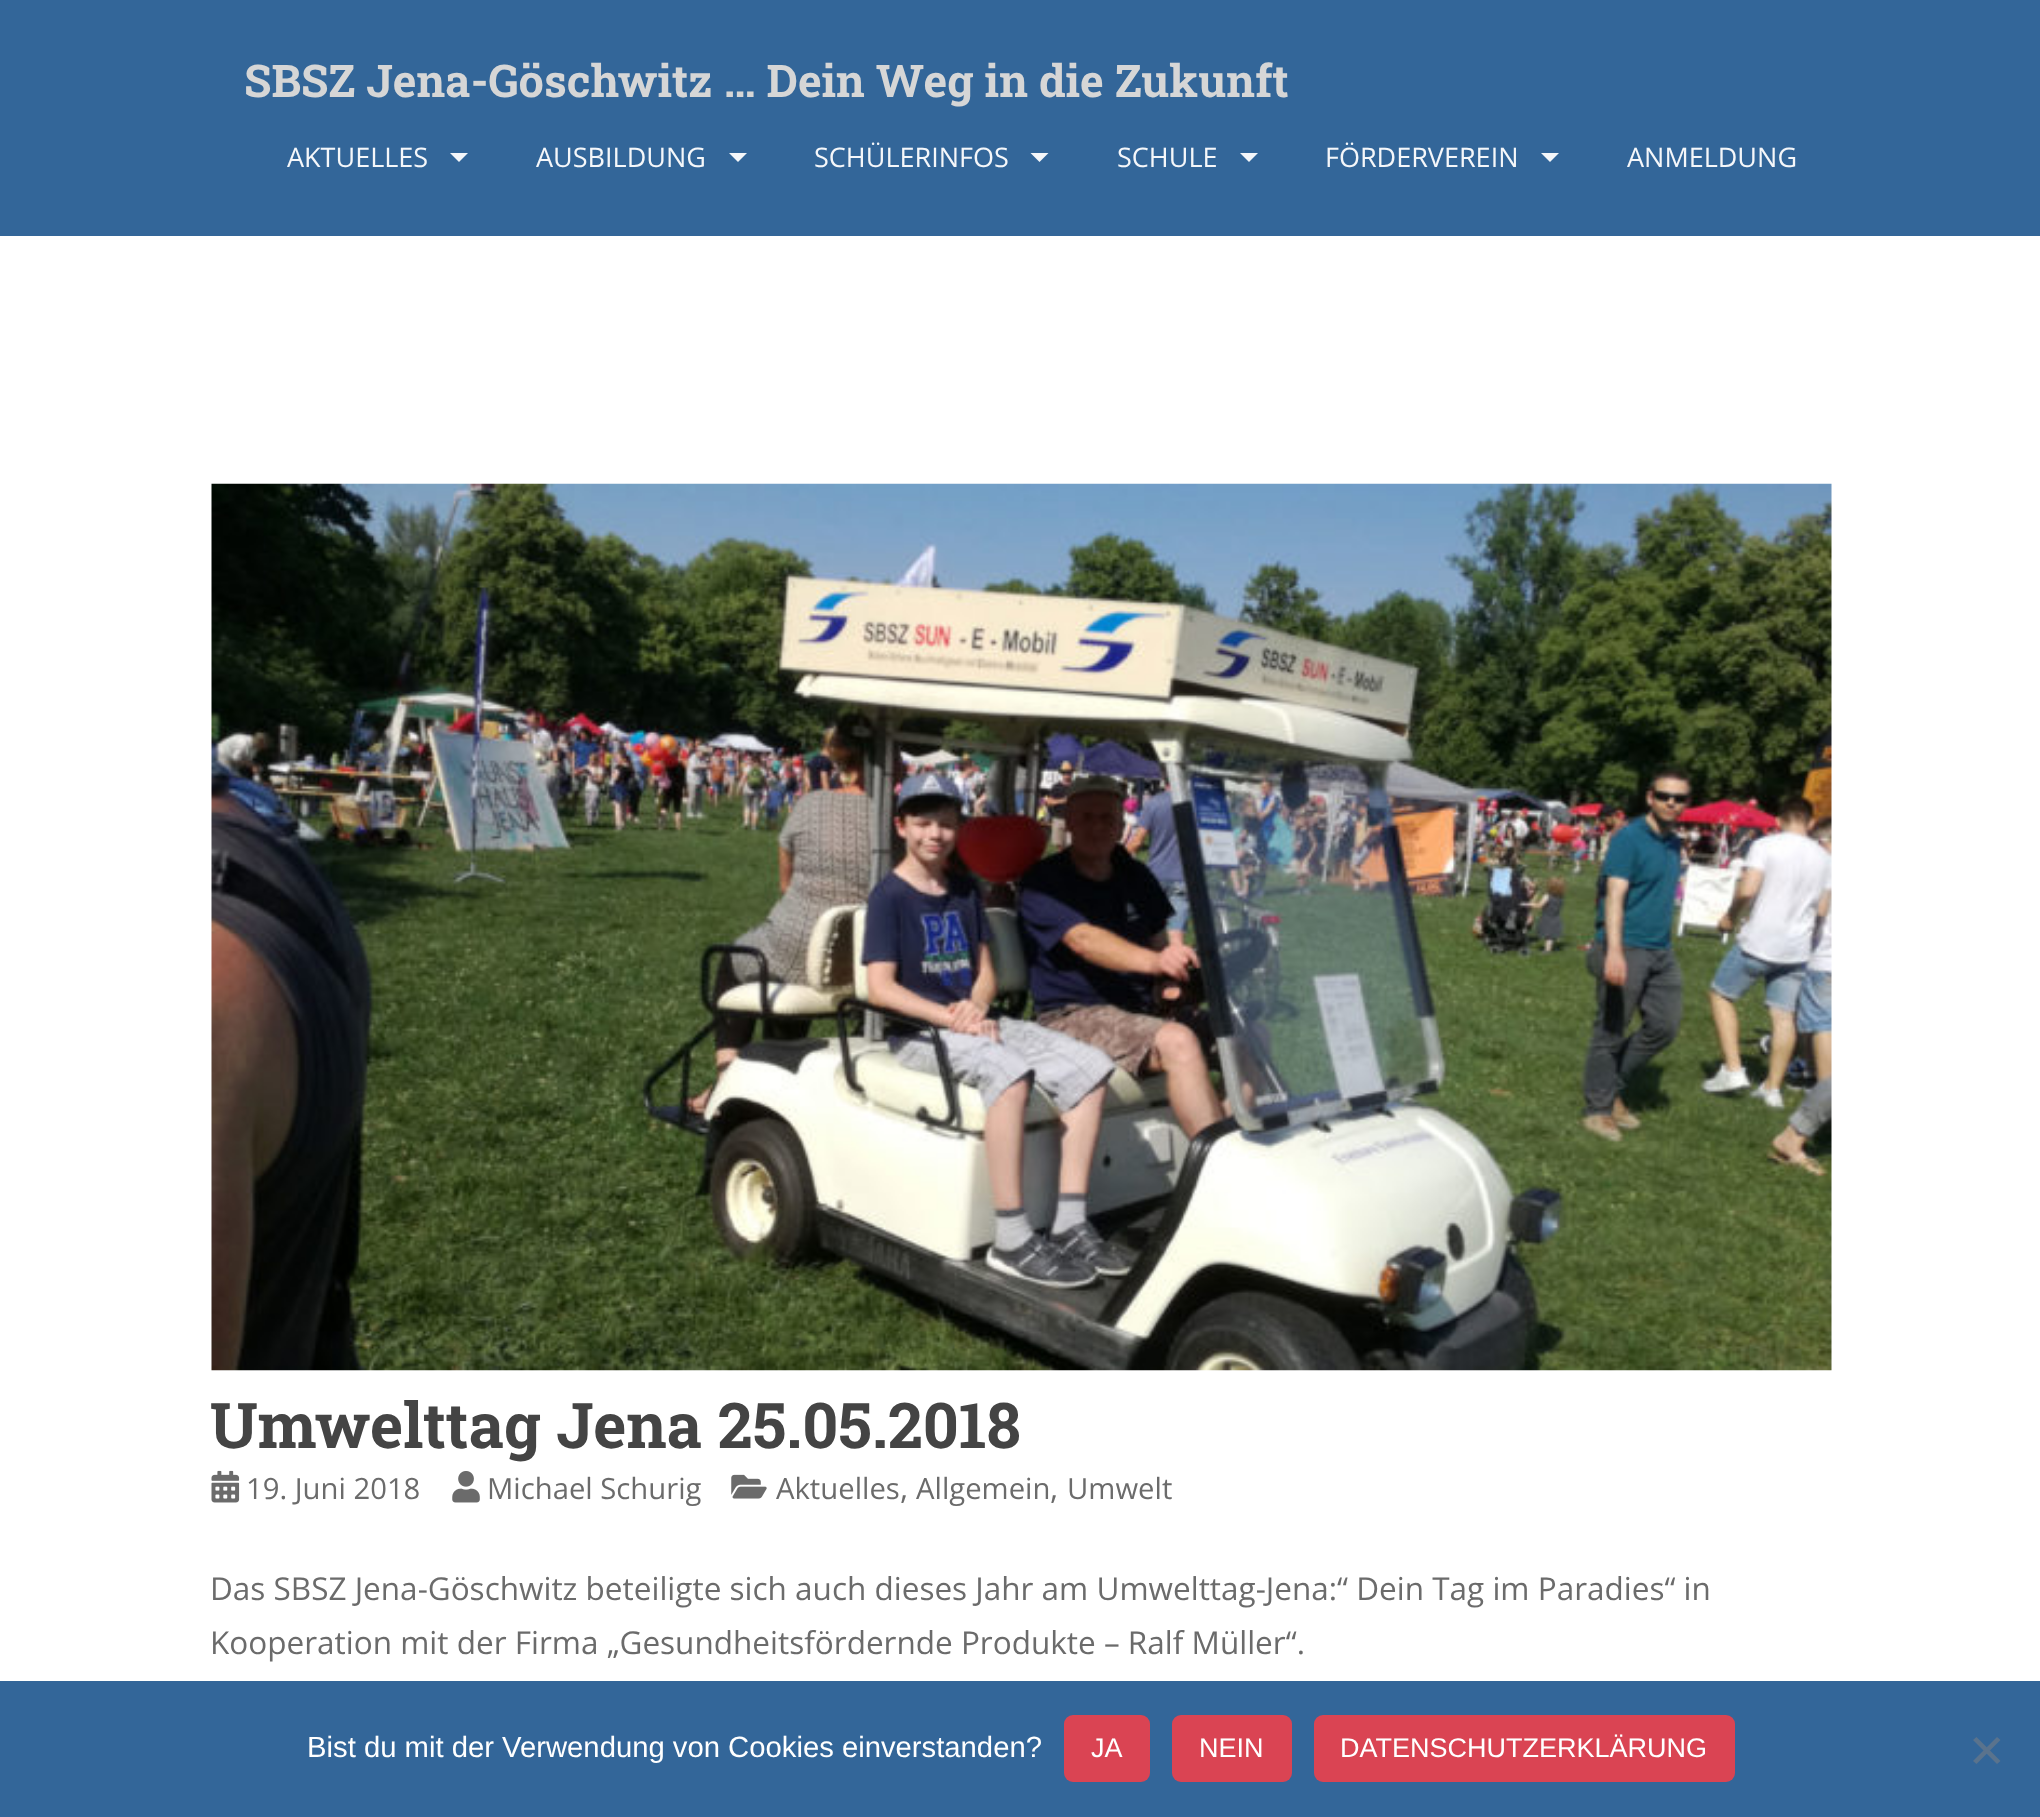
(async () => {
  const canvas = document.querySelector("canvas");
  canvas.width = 2040;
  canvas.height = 1817;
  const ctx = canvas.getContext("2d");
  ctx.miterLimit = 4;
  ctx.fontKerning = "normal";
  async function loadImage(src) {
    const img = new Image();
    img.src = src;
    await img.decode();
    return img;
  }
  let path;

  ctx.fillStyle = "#ffffff";
  ctx.fillRect(0, 0, 2040, 1817);
  ctx.fillStyle = "#336699";
  ctx.fillRect(0, 0, 2040, 236);
  ctx.fillStyle = "#f5f7fa";
  path = new Path2D("M450 153H468L459 162Z");
  ctx.fill(path);
  path = new Path2D("M729 153H747L738 162Z");
  ctx.fill(path);
  path = new Path2D("M1030.5 153H1048.5L1039.5 162Z");
  ctx.fill(path);
  path = new Path2D("M1240 153H1258L1249 162Z");
  ctx.fill(path);
  path = new Path2D("M1541 153H1559L1550 162Z");
  ctx.fill(path);
  ctx.drawImage(await loadImage("img/1.png"), 211, 483, 1621, 888);
  ctx.drawImage(await loadImage("img/2.png"), 211, 1470, 29, 33);
  ctx.drawImage(await loadImage("img/3.png"), 452, 1471, 28, 32);
  ctx.drawImage(await loadImage("img/4.png"), 731, 1474, 36, 25);
  ctx.fillStyle = "#336699";
  ctx.fillRect(0, 1681, 2040, 136);
  ctx.fillStyle = "#da4453";
  ctx.beginPath();
  ctx.roundRect(1064, 1715, 86, 67, 9);
  ctx.fill();
  ctx.beginPath();
  ctx.roundRect(1172, 1715, 120, 67, 9);
  ctx.fill();
  ctx.beginPath();
  ctx.roundRect(1314, 1715, 421, 67, 9);
  ctx.fill();
  ctx.fillStyle = "#5a738d";
  path = new Path2D("M1997 1737L2000.5 1740L1976.5 1764L1973 1761Z");
  ctx.fill(path);
  path = new Path2D("M1973 1740L1976.5 1737L2000.5 1761L1997 1764Z");
  ctx.fill(path);
  ctx.font = "bold 45px Roboto Slab";
  ctx.fillStyle = "#d6d6d6";
  ctx.fillText("SBSZ Jena-Göschwitz … Dein Weg in die Zukunft", 244, 97);
  ctx.font = "27px Open Sans";
  ctx.fillStyle = "#f5f7fa";
  for (const [text, x, y] of [
    ["AKTUELLES", 287, 167],
    ["AUSBILDUNG", 536, 167],
    ["SCHÜLERINFOS", 814, 167],
    ["SCHULE", 1117, 167],
    ["FÖRDERVEREIN", 1325, 167],
    ["ANMELDUNG", 1627, 167],
  ]) {
    ctx.fillText(text, x, y);
  }
  ctx.font = "bold 63px Roboto Slab";
  ctx.fillStyle = "#444444";
  ctx.fillText("Umwelttag Jena 25.05.2018", 210, 1448);
  ctx.font = "29.25px Open Sans";
  ctx.fillStyle = "#6b6b6b";
  for (const [text, x, y] of [
    ["19. Juni 2018", 246, 1499],
    ["Michael Schurig", 487, 1499],
    ["Aktuelles", 776, 1499],
  ]) {
    ctx.fillText(text, x, y);
  }
  ctx.font = "31.5px Open Sans";
  ctx.fillText(",", 900, 1499);
  ctx.font = "29.25px Open Sans";
  ctx.fillText("Allgemein", 916, 1499);
  ctx.font = "31.5px Open Sans";
  ctx.fillText(",", 1050, 1499);
  ctx.font = "29.25px Open Sans";
  ctx.fillText("Umwelt", 1067, 1499);
  ctx.font = "31.5px Open Sans";
  ctx.fillText("Das SBSZ Jena-Göschwitz beteiligte sich auch dieses Jahr am Umwelttag-Jena:“ Dein Tag im Paradies“ in", 210, 1600);
  ctx.fillText("Kooperation mit der Firma „Gesundheitsfördernde Produkte – Ralf Müller“.", 210, 1654);
  ctx.font = "29.25px Liberation Sans";
  ctx.fillStyle = "#ffffff";
  ctx.fillText("Bist du mit der Verwendung von Cookies einverstanden?", 307, 1757);
  ctx.font = "27px Liberation Sans";
  for (const [text, x, y] of [
    ["JA", 1091, 1757],
    ["NEIN", 1199, 1757],
    ["DATENSCHUTZERKLÄRUNG", 1340, 1757],
  ]) {
    ctx.fillText(text, x, y);
  }
})();
